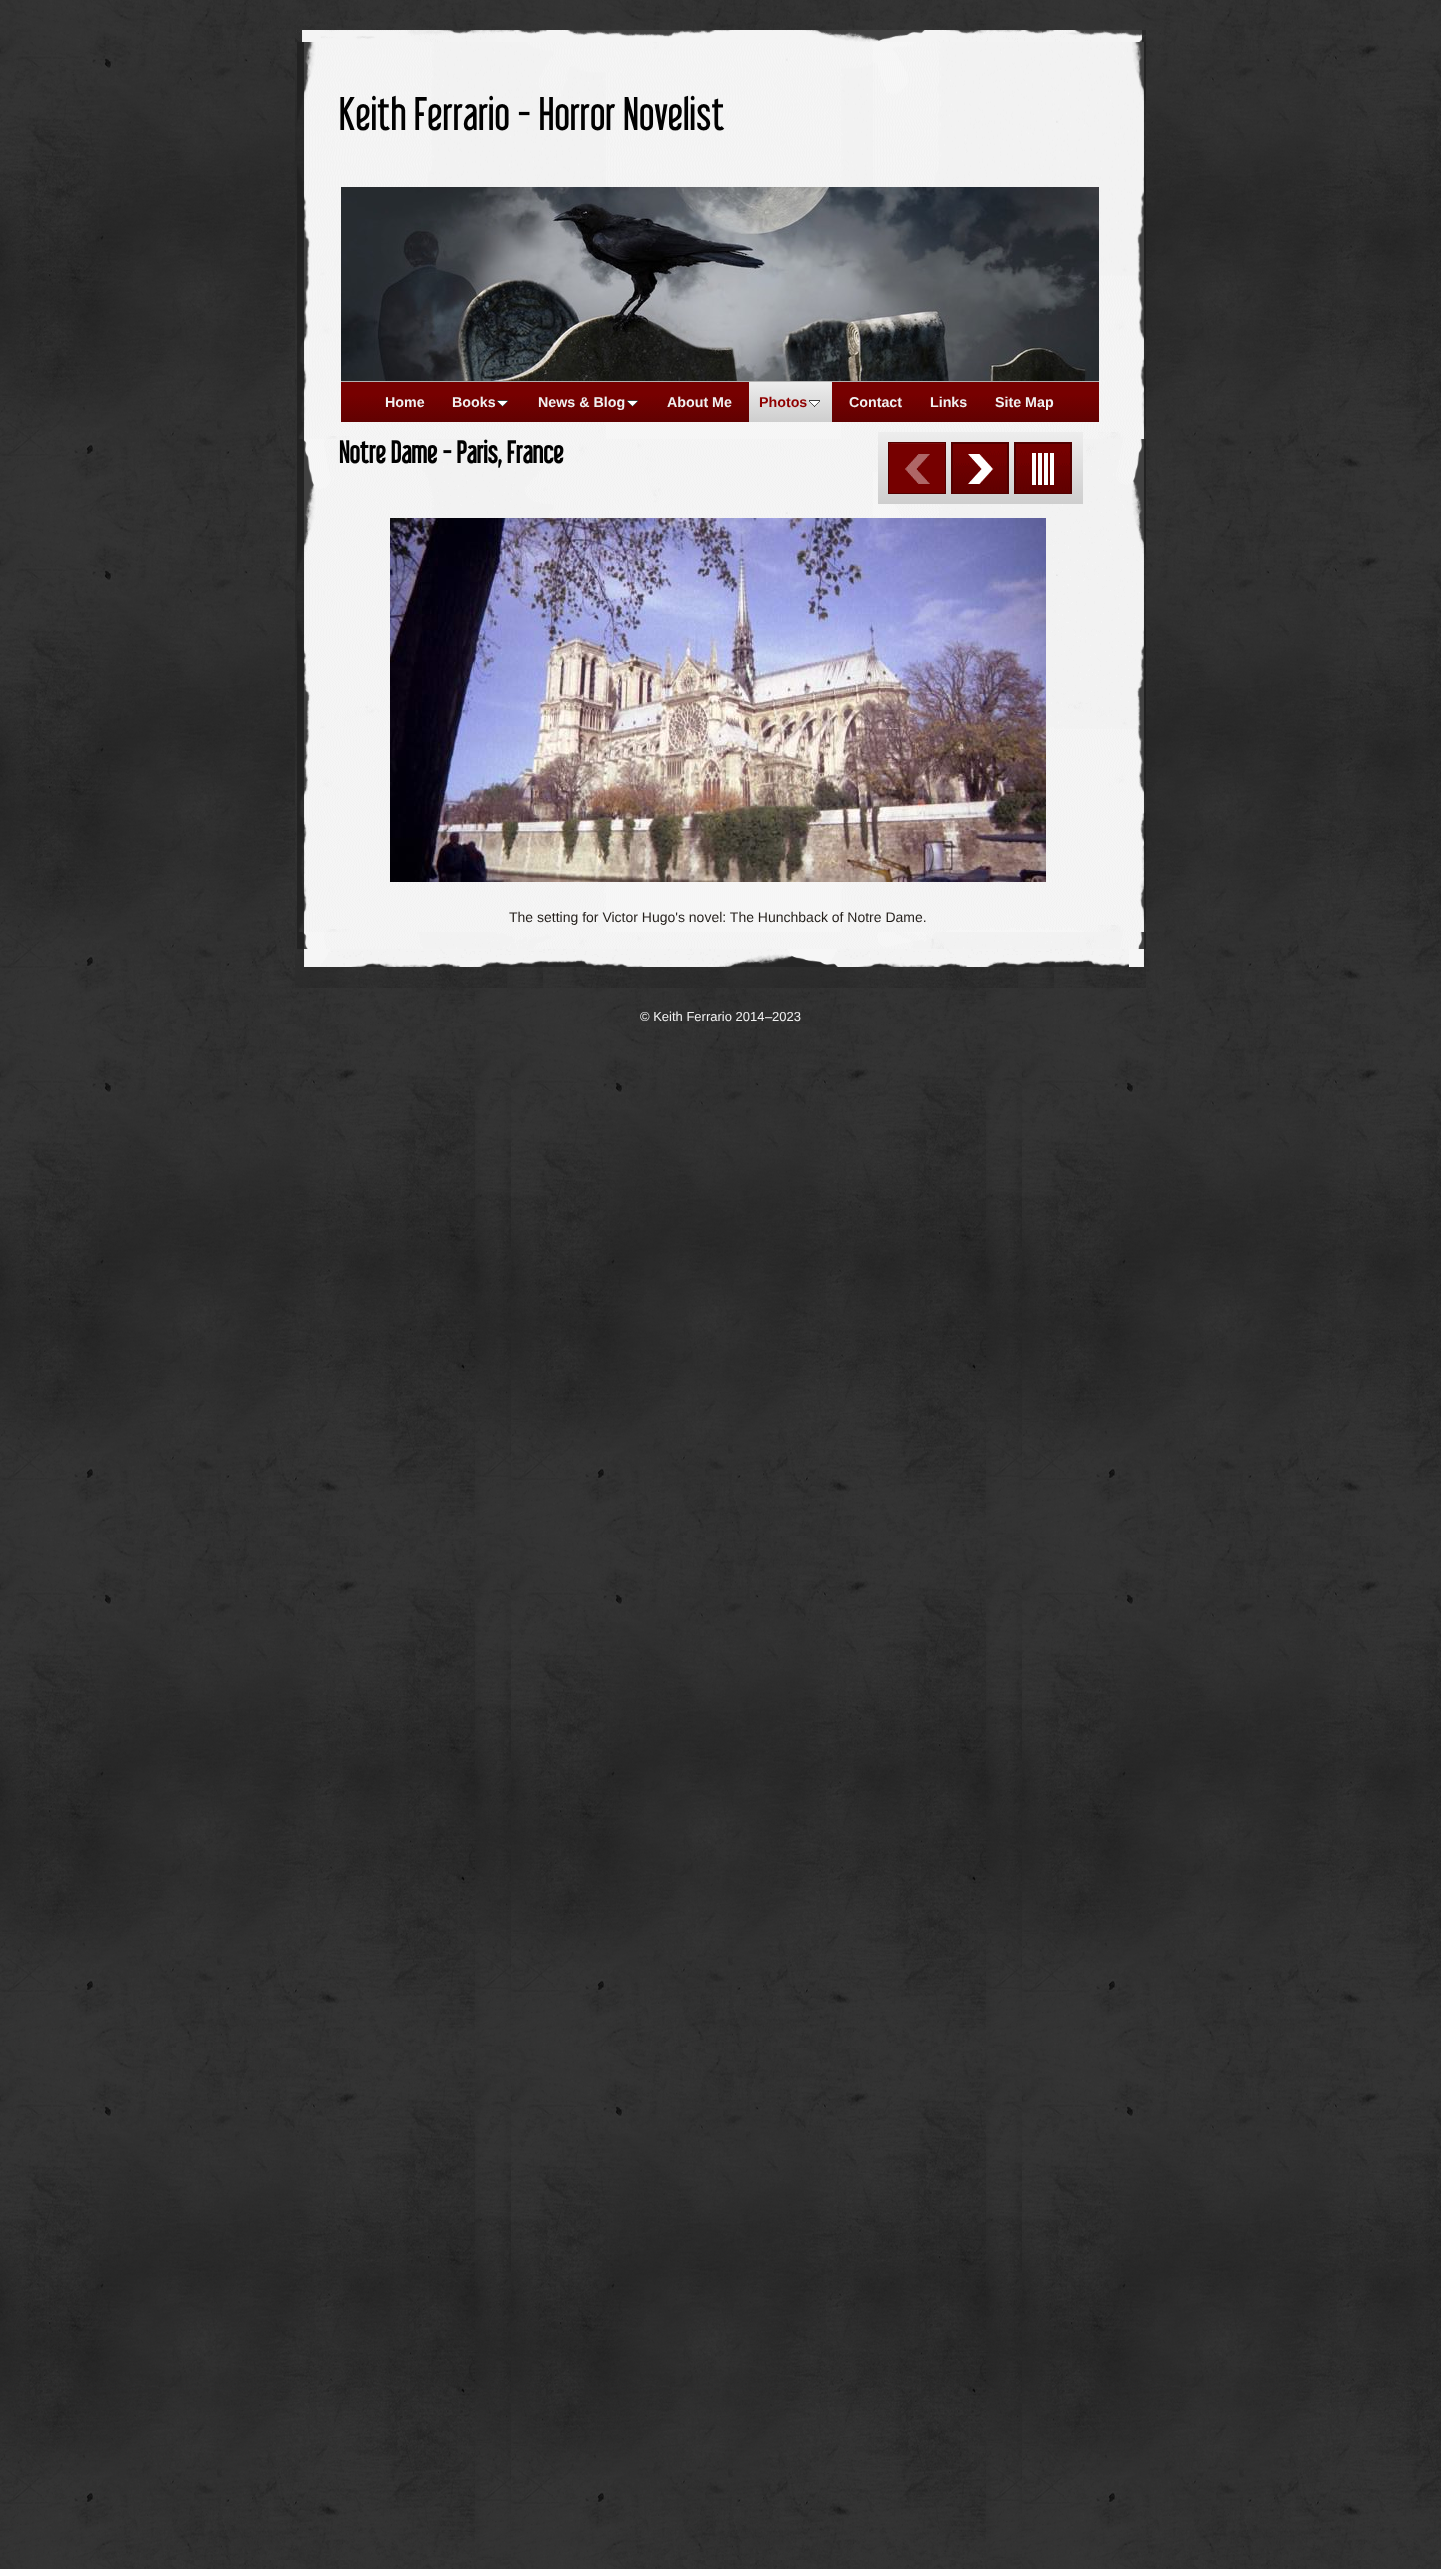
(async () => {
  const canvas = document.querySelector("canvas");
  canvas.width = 1441;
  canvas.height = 2569;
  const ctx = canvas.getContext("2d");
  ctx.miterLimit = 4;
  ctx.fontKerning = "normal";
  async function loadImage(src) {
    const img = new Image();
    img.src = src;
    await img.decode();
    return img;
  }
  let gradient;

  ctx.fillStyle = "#ffffff";
  ctx.fillRect(0, 0, 1441, 2569);
  ctx.drawImage(await loadImage("img/1.png"), 0, 0, 1441, 2569);
  ctx.drawImage(await loadImage("img/2.png"), 295, 30, 851, 12);
  ctx.drawImage(await loadImage("img/3.png"), 295, 42, 851, 380);
  ctx.drawImage(await loadImage("img/4.png"), 341, 187, 758, 194);
  gradient = ctx.createLinearGradient(341, 422, 341, 382);
  gradient.addColorStop(0, "#610101");
  gradient.addColorStop(0.69, "#770000");
  ctx.fillStyle = gradient;
  ctx.fillRect(341, 382, 758, 40);
  ctx.fillStyle = "#b2b2b2";
  ctx.fillRect(341, 381, 758, 1);
  ctx.drawImage(await loadImage("img/5.png"), 497, 400, 11, 7);
  ctx.drawImage(await loadImage("img/5.png"), 627, 400, 11, 7);
  gradient = ctx.createLinearGradient(749, 422, 749, 382);
  gradient.addColorStop(0, "#cecece");
  gradient.addColorStop(1, "#ededed");
  ctx.fillStyle = gradient;
  ctx.fillRect(749, 382, 83, 40);
  ctx.drawImage(await loadImage("img/6.png"), 809, 400, 11, 7);
  ctx.drawImage(await loadImage("img/7.png"), 295, 422, 851, 527);
  gradient = ctx.createLinearGradient(878, 504, 878, 432);
  gradient.addColorStop(0, "#cecece");
  gradient.addColorStop(1, "#ededed");
  ctx.fillStyle = gradient;
  ctx.fillRect(878, 432, 205, 72);
  ctx.drawImage(await loadImage("img/8.png"), 889, 443, 56, 50);
  ctx.strokeStyle = "#510000";
  ctx.strokeRect(888.5, 442.5, 57, 51);
  ctx.drawImage(await loadImage("img/9.png"), 952, 443, 56, 1);
  ctx.strokeRect(951.5, 442.5, 57, 51);
  ctx.drawImage(await loadImage("img/10.png"), 952, 443, 56, 50);
  ctx.drawImage(await loadImage("img/9.png"), 1015, 443, 56, 1);
  ctx.strokeRect(1014.5, 442.5, 57, 51);
  ctx.drawImage(await loadImage("img/11.png"), 1015, 443, 56, 50);
  ctx.drawImage(await loadImage("img/12.png"), 390, 518, 656, 364);
  ctx.drawImage(await loadImage("img/13.png"), 295, 949, 851, 39);
  ctx.font = "42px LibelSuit";
  ctx.fillStyle = "#000000";
  ctx.fillText("Keith Ferrario - Horror Novelist", 339, 130);
  ctx.font = "bold 14.25px Liberation Sans";
  ctx.fillStyle = "#f1f1f1";
  for (const [text, x, y] of [
    ["Home", 385, 407],
    ["Books", 452, 407],
    ["News & Blog", 538, 407],
    ["About Me", 667, 407],
  ]) {
    ctx.fillText(text, x, y);
  }
  ctx.fillStyle = "#8f0000";
  ctx.fillText("Photos", 759, 407);
  ctx.fillStyle = "#f1f1f1";
  for (const [text, x, y] of [
    ["Contact", 849, 407],
    ["Links", 930, 407],
    ["Site Map", 995, 407],
  ]) {
    ctx.fillText(text, x, y);
  }
  ctx.font = "bold 28px LibelSuit";
  ctx.fillStyle = "#000000";
  ctx.fillText("Notre Dame - Paris, France", 339, 463);
  ctx.font = "14px Liberation Sans";
  ctx.fillStyle = "#231e1a";
  ctx.fillText("The setting for Victor Hugo's novel: The Hunchback of Notre Dame.", 509, 922);
  ctx.font = "13px Liberation Sans";
  ctx.fillStyle = "#f1f1f1";
  ctx.fillText("© Keith Ferrario 2014", 640, 1021);
  ctx.fillStyle = "#ffffff";
  ctx.fillText("–", 765, 1021);
  ctx.fillStyle = "#f1f1f1";
  ctx.fillText("2023", 772, 1021);
})();
